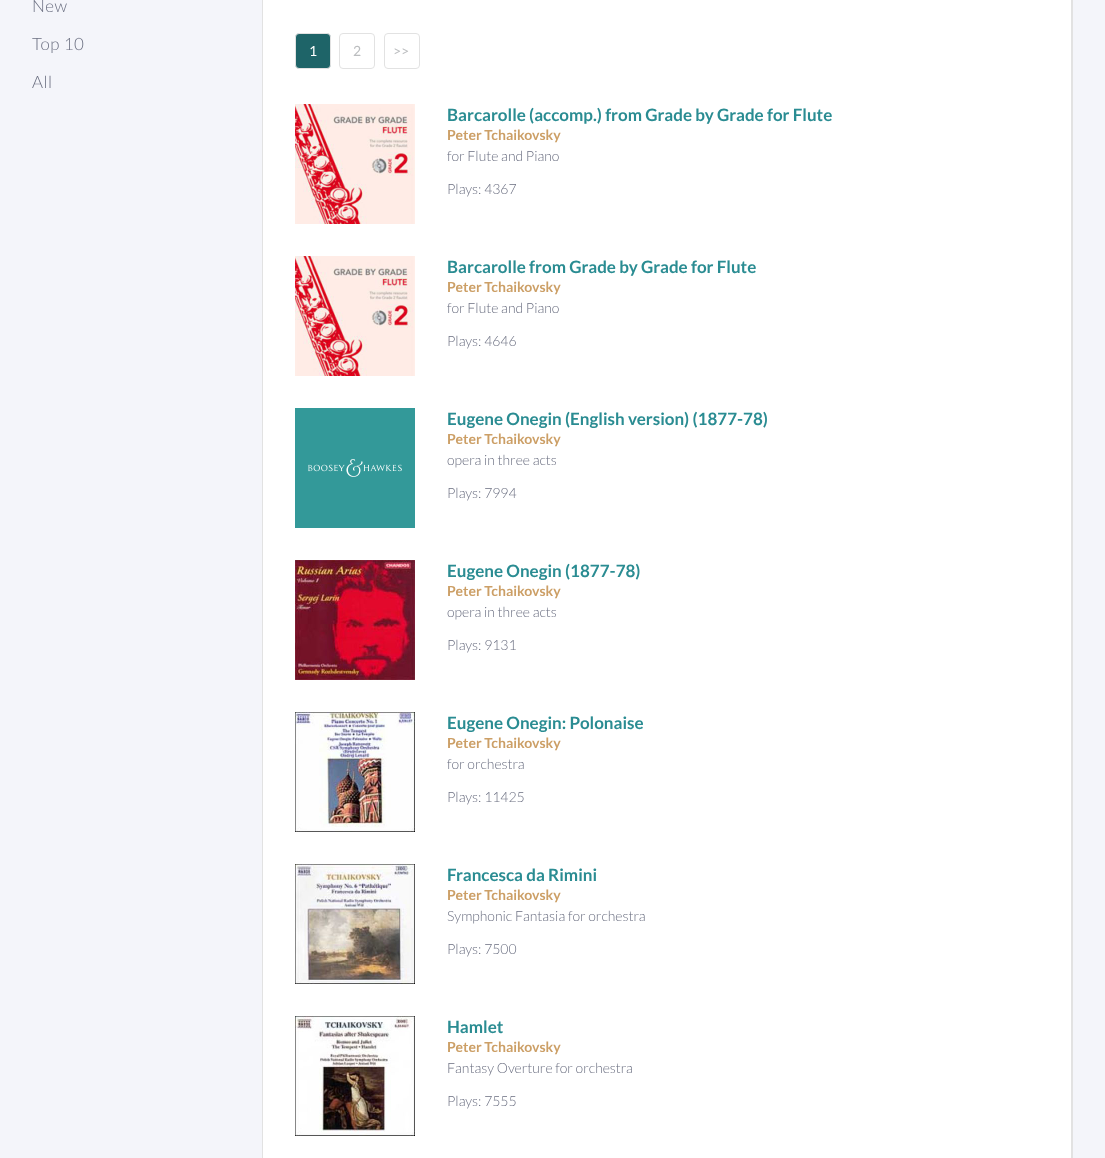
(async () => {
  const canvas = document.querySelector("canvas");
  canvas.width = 1105;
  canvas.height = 1158;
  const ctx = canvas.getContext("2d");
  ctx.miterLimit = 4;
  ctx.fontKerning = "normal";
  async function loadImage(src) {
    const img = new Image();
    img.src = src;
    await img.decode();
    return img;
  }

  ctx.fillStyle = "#f4f5fa";
  ctx.fillRect(0, 0, 1105, 1158);
  for (const [x, y, w, h, color] of [
    [263, 0, 808, 1158, "#ffffff"],
    [1071, 0, 2, 1158, "#e2e2e2"],
    [262, 0, 1, 1158, "#e2e2e2"],
  ]) {
    ctx.fillStyle = color;
    ctx.fillRect(x, y, w, h);
  }
  ctx.fillStyle = "#1e6468";
  ctx.beginPath();
  ctx.roundRect(295.5, 33.5, 35, 35, 3.5);
  ctx.fill();
  ctx.strokeStyle = "#e2e2e2";
  ctx.stroke();
  ctx.beginPath();
  ctx.roundRect(339.5, 33.5, 35, 35, 3.5);
  ctx.stroke();
  ctx.beginPath();
  ctx.roundRect(384.5, 33.5, 35, 35, 3.5);
  ctx.stroke();
  ctx.drawImage(await loadImage("img/1.png"), 295, 104, 120, 120);
  ctx.drawImage(await loadImage("img/1.png"), 295, 256, 120, 120);
  ctx.drawImage(await loadImage("img/2.png"), 295, 408, 120, 120);
  ctx.drawImage(await loadImage("img/3.png"), 295, 560, 120, 120);
  ctx.drawImage(await loadImage("img/4.png"), 295, 712, 120, 120);
  ctx.drawImage(await loadImage("img/5.png"), 295, 864, 120, 120);
  ctx.drawImage(await loadImage("img/6.png"), 295, 1016, 120, 120);
  ctx.letterSpacing = "0.5px";
  ctx.font = "300 17px Lato";
  ctx.fillStyle = "#6b6f81";
  for (const [text, x, y] of [
    ["New", 32, 12],
    ["Top 10", 32, 50],
    ["All", 32, 88],
  ]) {
    ctx.fillText(text, x, y);
  }
  ctx.letterSpacing = "0px";
  ctx.font = "14px Lato";
  ctx.fillStyle = "#ffffff";
  ctx.fillText("1", 309, 56);
  ctx.fillStyle = "#bbbdbf";
  ctx.fillText("2", 353, 56);
  ctx.fillText(">>", 393, 56);
  ctx.font = "bold 17px Lato";
  ctx.fillStyle = "#2a8c92";
  ctx.fillText("Barcarolle (accomp.) from Grade by Grade for Flute", 447, 121);
  ctx.font = "bold 14px Lato";
  ctx.fillStyle = "#cc9f66";
  ctx.fillText("Peter Tchaikovsky", 447, 140);
  ctx.font = "300 14px Lato";
  ctx.fillStyle = "#6b6f81";
  ctx.fillText("for Flute and Piano", 447, 161);
  ctx.fillText("Plays: 4367", 447, 194);
  ctx.font = "bold 17px Lato";
  ctx.fillStyle = "#2a8c92";
  ctx.fillText("Barcarolle from Grade by Grade for Flute", 447, 273);
  ctx.font = "bold 14px Lato";
  ctx.fillStyle = "#cc9f66";
  ctx.fillText("Peter Tchaikovsky", 447, 292);
  ctx.font = "300 14px Lato";
  ctx.fillStyle = "#6b6f81";
  ctx.fillText("for Flute and Piano", 447, 313);
  ctx.fillText("Plays: 4646", 447, 346);
  ctx.font = "bold 17px Lato";
  ctx.fillStyle = "#2a8c92";
  ctx.fillText("Eugene Onegin (English version) (1877-78)", 447, 425);
  ctx.font = "bold 14px Lato";
  ctx.fillStyle = "#cc9f66";
  ctx.fillText("Peter Tchaikovsky", 447, 444);
  ctx.font = "300 14px Lato";
  ctx.fillStyle = "#6b6f81";
  ctx.fillText("opera in three acts", 447, 465);
  ctx.fillText("Plays: 7994", 447, 498);
  ctx.font = "bold 17px Lato";
  ctx.fillStyle = "#2a8c92";
  ctx.fillText("Eugene Onegin (1877-78)", 447, 577);
  ctx.font = "bold 14px Lato";
  ctx.fillStyle = "#cc9f66";
  ctx.fillText("Peter Tchaikovsky", 447, 596);
  ctx.font = "300 14px Lato";
  ctx.fillStyle = "#6b6f81";
  ctx.fillText("opera in three acts", 447, 617);
  ctx.fillText("Plays: 9131", 447, 650);
  ctx.font = "bold 17px Lato";
  ctx.fillStyle = "#2a8c92";
  ctx.fillText("Eugene Onegin: Polonaise", 447, 729);
  ctx.font = "bold 14px Lato";
  ctx.fillStyle = "#cc9f66";
  ctx.fillText("Peter Tchaikovsky", 447, 748);
  ctx.font = "300 14px Lato";
  ctx.fillStyle = "#6b6f81";
  ctx.fillText("for orchestra", 447, 769);
  ctx.fillText("Plays: 11425", 447, 802);
  ctx.font = "bold 17px Lato";
  ctx.fillStyle = "#2a8c92";
  ctx.fillText("Francesca da Rimini", 447, 881);
  ctx.font = "bold 14px Lato";
  ctx.fillStyle = "#cc9f66";
  ctx.fillText("Peter Tchaikovsky", 447, 900);
  ctx.font = "300 14px Lato";
  ctx.fillStyle = "#6b6f81";
  ctx.fillText("Symphonic Fantasia for orchestra", 447, 921);
  ctx.fillText("Plays: 7500", 447, 954);
  ctx.font = "bold 17px Lato";
  ctx.fillStyle = "#2a8c92";
  ctx.fillText("Hamlet", 447, 1033);
  ctx.font = "bold 14px Lato";
  ctx.fillStyle = "#cc9f66";
  ctx.fillText("Peter Tchaikovsky", 447, 1052);
  ctx.font = "300 14px Lato";
  ctx.fillStyle = "#6b6f81";
  ctx.fillText("Fantasy Overture for orchestra", 447, 1073);
  ctx.fillText("Plays: 7555", 447, 1106);
})();
